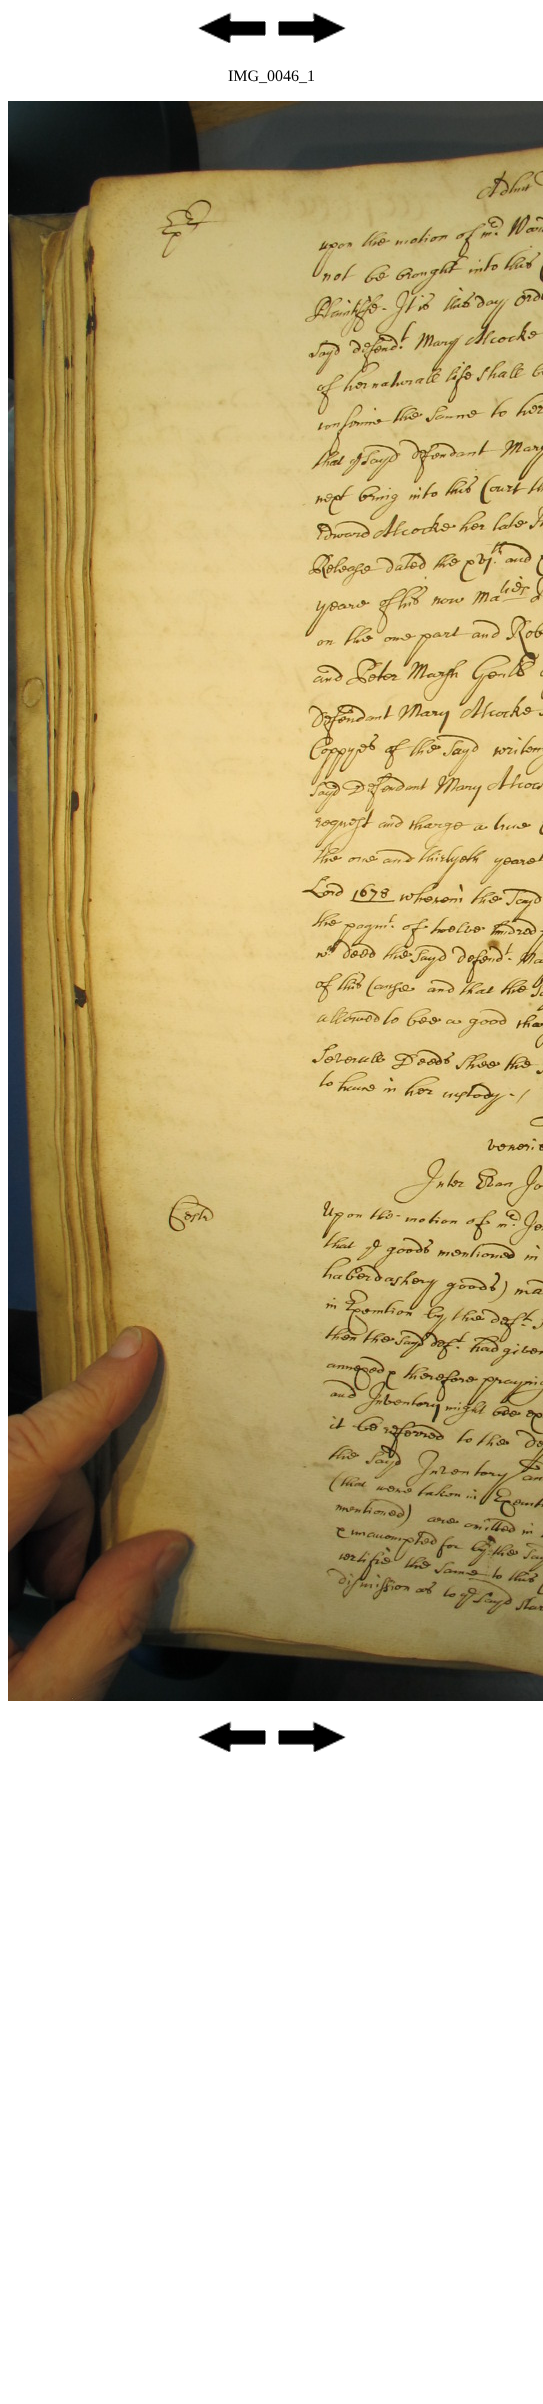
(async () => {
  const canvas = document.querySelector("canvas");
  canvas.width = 543;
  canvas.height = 2404;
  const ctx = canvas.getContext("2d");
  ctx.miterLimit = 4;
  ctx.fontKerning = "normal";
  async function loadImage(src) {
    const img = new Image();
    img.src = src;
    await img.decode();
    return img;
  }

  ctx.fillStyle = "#ffffff";
  ctx.fillRect(0, 0, 543, 2404);
  ctx.drawImage(await loadImage("img/1.png"), 197, 12, 69, 31);
  ctx.drawImage(await loadImage("img/2.png"), 278, 12, 69, 31);
  ctx.drawImage(await loadImage("img/3.png"), 8, 101, 535, 1600);
  ctx.drawImage(await loadImage("img/1.png"), 197, 1721, 69, 31);
  ctx.drawImage(await loadImage("img/2.png"), 278, 1721, 69, 31);
  ctx.font = "16px Liberation Serif";
  ctx.fillStyle = "#000000";
  ctx.fillText("IMG_0046_1", 228, 81);
})();
